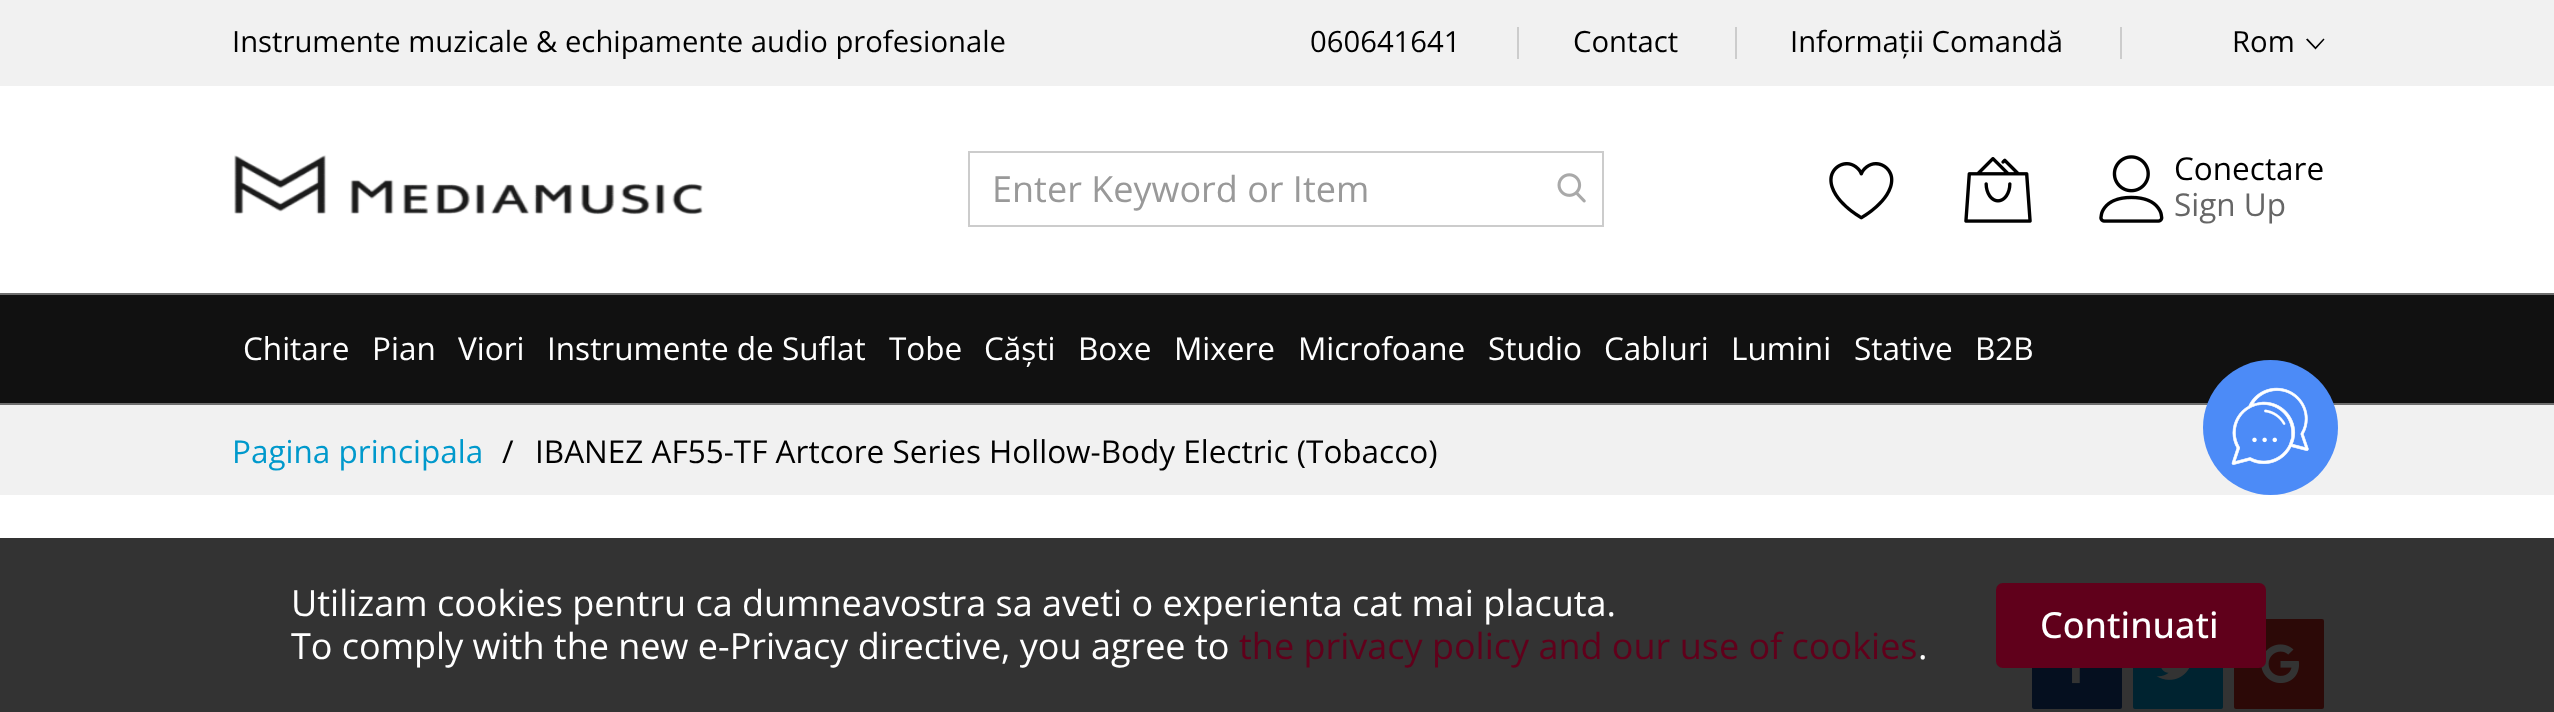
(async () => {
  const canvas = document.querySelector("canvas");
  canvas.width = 2554;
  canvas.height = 712;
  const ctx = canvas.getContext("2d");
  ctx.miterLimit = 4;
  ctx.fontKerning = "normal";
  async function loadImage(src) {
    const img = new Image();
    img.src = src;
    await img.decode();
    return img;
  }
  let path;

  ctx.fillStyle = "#ffffff";
  ctx.fillRect(0, 0, 2554, 712);
  for (const [x, y, w, h, color] of [
    [0, 0, 2554, 86, "#f1f1f1"],
    [1517, 27, 2, 32, "#cccccc"],
    [1735, 27, 2, 32, "#cccccc"],
    [2120, 27, 2, 32, "#cccccc"],
  ]) {
    ctx.fillStyle = color;
    ctx.fillRect(x, y, w, h);
  }
  ctx.fillStyle = "#000000";
  path = new Path2D("M2323.5 38.5L2324.5 39.5L2315.5 49.5L2306 39.5L2307.5 38.5L2315.5 47Z");
  ctx.fill(path);
  ctx.drawImage(await loadImage("img/1.png"), 234, 155, 469, 60);
  ctx.strokeStyle = "#cccccc";
  ctx.lineWidth = 2;
  ctx.strokeRect(969, 152, 634, 74);
  ctx.drawImage(await loadImage("img/2.png"), 1557, 173, 29, 30);
  ctx.drawImage(await loadImage("img/3.png"), 1829, 162, 65, 58);
  ctx.drawImage(await loadImage("img/4.png"), 1964, 157, 68, 66);
  ctx.drawImage(await loadImage("img/5.png"), 2099, 155, 65, 68);
  for (const [x, y, w, h, color] of [
    [0, 295, 2554, 108, "#111111"],
    [0, 293, 2554, 2, "#6f6f6f"],
    [0, 403, 2554, 2, "#6f6f6f"],
    [0, 405, 2554, 90, "#f1f1f1"],
  ]) {
    ctx.fillStyle = color;
    ctx.fillRect(x, y, w, h);
  }
  ctx.fillStyle = "#1b4e9b";
  ctx.beginPath();
  ctx.roundRect(2032, 619, 90, 90, 2);
  ctx.fill();
  ctx.drawImage(await loadImage("img/6.png"), 2072, 668, 8, 16);
  ctx.fillStyle = "#00aeef";
  ctx.beginPath();
  ctx.roundRect(2133, 619, 90, 90, 2);
  ctx.fill();
  ctx.drawImage(await loadImage("img/7.png"), 2156, 668, 34, 12);
  ctx.fillStyle = "#d93025";
  ctx.beginPath();
  ctx.roundRect(2234, 619, 90, 90, 2);
  ctx.fill();
  ctx.drawImage(await loadImage("img/8.png"), 2261, 644, 39, 40);
  ctx.fillStyle = "rgba(0, 0, 0, 0.8)";
  ctx.fillRect(0, 538, 2554, 174);
  ctx.fillStyle = "#60001b";
  ctx.beginPath();
  ctx.roundRect(1997, 584, 268, 83, 6);
  ctx.fill();
  ctx.strokeStyle = "#60001b";
  ctx.stroke();
  ctx.fillStyle = "#4c8bf7";
  ctx.beginPath();
  ctx.arc(2270.5, 427.5, 67.5, 0, Math.PI * 2);
  ctx.fill();
  ctx.drawImage(await loadImage("img/9.png"), 2231, 387, 78, 78);
  ctx.font = "29.25px Open Sans";
  ctx.fillStyle = "#000000";
  for (const [text, x, y] of [
    ["Instrumente muzicale & echipamente audio profesionale", 232, 52],
    ["060641641", 1310, 52],
    ["Contact", 1573, 52],
    ["Informații Comandă", 1790, 52],
    ["Rom", 2232, 52],
  ]) {
    ctx.fillText(text, x, y);
  }
  ctx.font = "36px Open Sans";
  ctx.fillStyle = "#999999";
  ctx.fillText("Enter Keyword or Item", 992, 202);
  ctx.font = "31.5px Open Sans";
  ctx.fillStyle = "#000000";
  ctx.fillText("Conectare", 2174, 180);
  ctx.fillStyle = "#666666";
  ctx.fillText("Sign Up", 2174, 216);
  ctx.fillStyle = "#ffffff";
  for (const [text, x, y] of [
    ["Chitare", 243, 360],
    ["Pian", 372, 360],
    ["Viori", 458, 360],
    ["Instrumente de Suflat", 547, 360],
    ["Tobe", 889, 360],
    ["Căști", 984, 360],
    ["Boxe", 1078, 360],
    ["Mixere", 1174, 360],
    ["Microfoane", 1298, 360],
    ["Studio", 1488, 360],
    ["Cabluri", 1604, 360],
    ["Lumini", 1731, 360],
    ["Stative", 1854, 360],
    ["B2B", 1975, 360],
  ]) {
    ctx.fillText(text, x, y);
  }
  ctx.fillStyle = "#0099cc";
  ctx.fillText("Pagina principala", 232, 463);
  ctx.fillStyle = "#000000";
  ctx.fillText("/", 502, 463);
  ctx.fillText("IBANEZ AF55-TF Artcore Series Hollow-Body Electric (Tobacco)", 535, 463);
  ctx.font = "36px Open Sans";
  ctx.fillStyle = "#ffffff";
  ctx.fillText("Utilizam cookies pentru ca dumneavostra sa aveti o experienta cat mai placuta.", 291, 616);
  ctx.fillText("To comply with the new e-Privacy directive, you agree to", 291, 659);
  ctx.fillStyle = "#60001b";
  ctx.fillText("the privacy policy and our use of cookies", 1239, 659);
  ctx.fillStyle = "#ffffff";
  ctx.fillText(".", 1918, 659);
  ctx.font = "500 36px Open Sans";
  ctx.fillText("Continuati", 2040, 638);
})();
